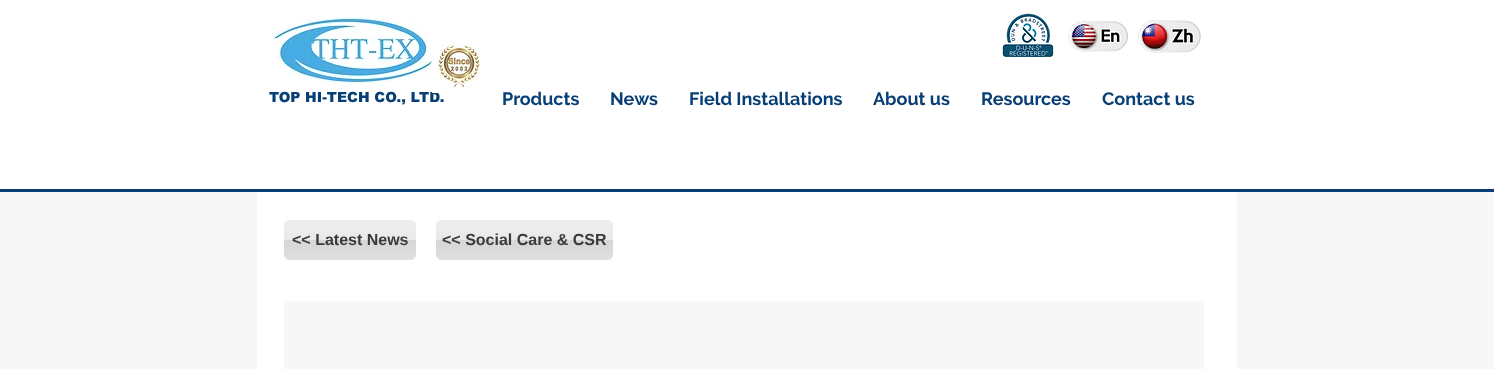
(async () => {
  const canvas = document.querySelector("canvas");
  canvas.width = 1494;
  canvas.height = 369;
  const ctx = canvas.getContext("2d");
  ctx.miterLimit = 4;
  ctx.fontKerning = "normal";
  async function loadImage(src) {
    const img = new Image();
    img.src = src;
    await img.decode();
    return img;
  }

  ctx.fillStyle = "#f7f7f7";
  ctx.fillRect(0, 0, 1494, 369);
  ctx.fillStyle = "#ffffff";
  ctx.fillRect(0, 0, 1494, 189);
  ctx.drawImage(await loadImage("img/1.png"), 270, 17, 164, 66);
  ctx.drawImage(await loadImage("img/2.png"), 1002, 13, 52, 46);
  ctx.drawImage(await loadImage("img/3.png"), 1068, 20, 60, 32);
  ctx.drawImage(await loadImage("img/4.png"), 1138, 20, 63, 33);
  ctx.fillStyle = "#063e75";
  ctx.fillRect(0, 189, 1494, 3);
  ctx.fillStyle = "#ffffff";
  ctx.fillRect(257, 192, 980, 177);
  ctx.fillStyle = "#e8e6e6";
  ctx.beginPath();
  ctx.roundRect(284, 220, 132, 40, 5);
  ctx.fill();
  ctx.drawImage(await loadImage("img/6.png"), 284, 220, 132, 40);
  ctx.beginPath();
  ctx.roundRect(436, 220, 177, 40, 5);
  ctx.fill();
  ctx.drawImage(await loadImage("img/7.png"), 436, 220, 177, 40);
  ctx.fillStyle = "#f7f7f7";
  ctx.fillRect(284, 301, 920, 68);
  ctx.font = "900 14px arial";
  ctx.fillStyle = "#063e75";
  ctx.fillText("TOP HI-TECH CO., LTD.", 269, 102);
  ctx.fillStyle = "#ffffff";
  ctx.fillRect(432, 59, 6, 34);
  ctx.drawImage(await loadImage("img/5.png"), 437, 44, 44, 44);
  ctx.font = "bold 18px Raleway";
  ctx.fillStyle = "#063e75";
  for (const [text, x, y] of [
    ["Products", 502, 105],
    ["News", 610, 105],
    ["Field Installations", 689, 105],
    ["About us", 873, 105],
    ["Resources", 981, 105],
    ["Contact us", 1102, 105],
  ]) {
    ctx.fillText(text, x, y);
  }
  ctx.font = "bold 16px Liberation Sans";
  ctx.fillStyle = "#3b3a3a";
  ctx.fillText("<< Latest News", 292, 245);
  ctx.fillText("<< Social Care & CSR", 442, 245);
})();
